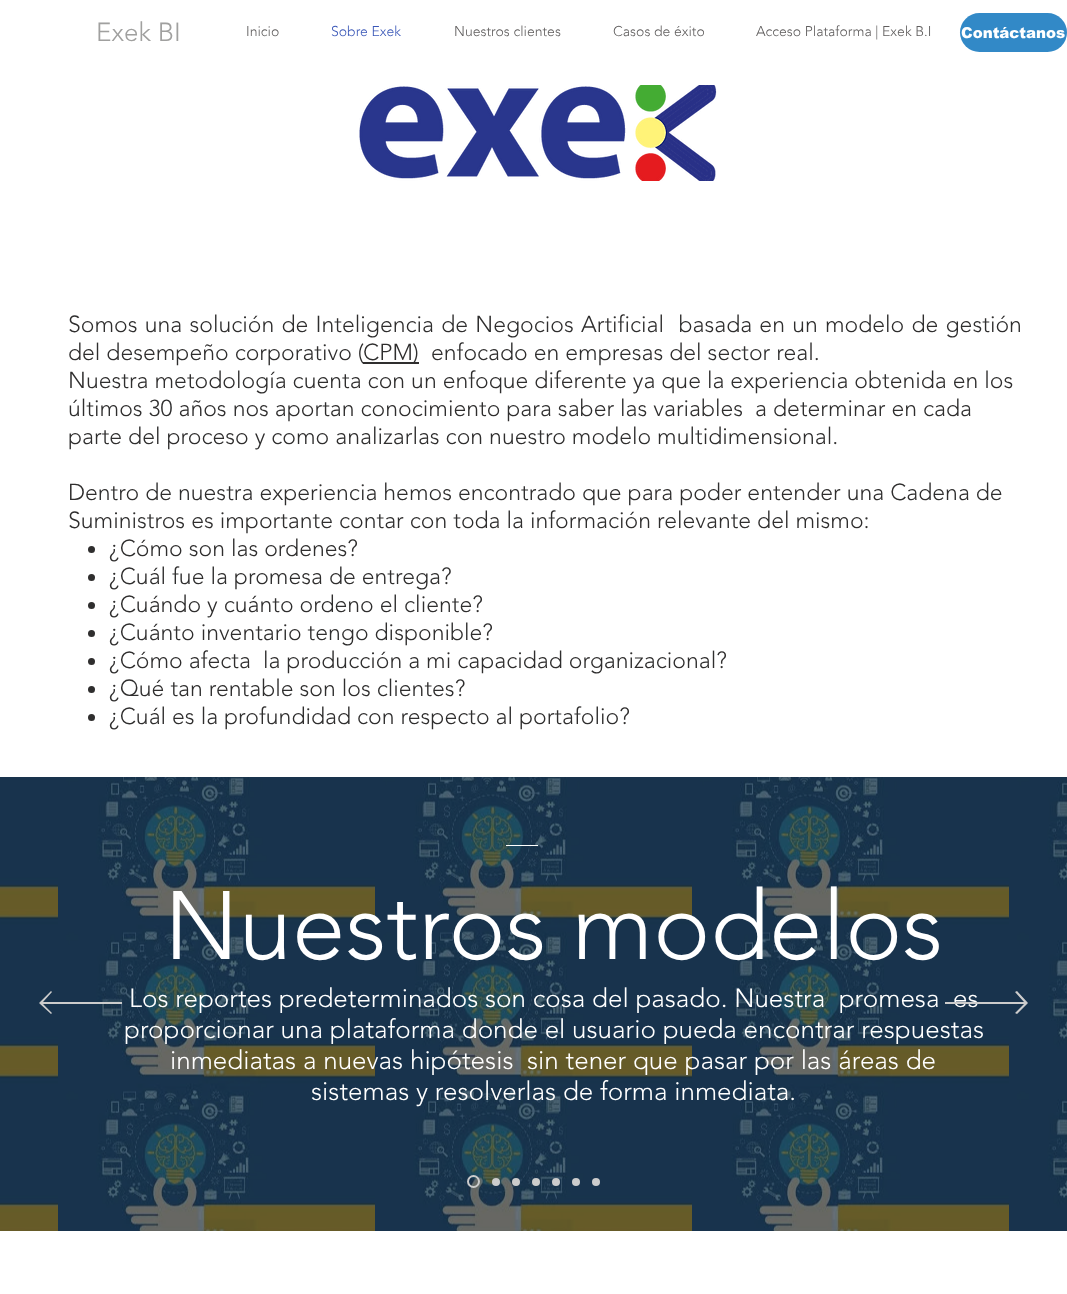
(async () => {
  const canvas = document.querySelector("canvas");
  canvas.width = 1067;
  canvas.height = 1294;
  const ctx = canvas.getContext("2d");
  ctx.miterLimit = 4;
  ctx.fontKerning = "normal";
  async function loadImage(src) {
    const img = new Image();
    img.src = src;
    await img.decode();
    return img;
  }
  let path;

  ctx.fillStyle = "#ffffff";
  ctx.fillRect(0, 0, 1067, 1294);
  ctx.fillStyle = "#3289c7";
  ctx.beginPath();
  ctx.roundRect(960, 13, 107, 39, 19.5);
  ctx.fill();
  ctx.drawImage(await loadImage("img/1.png"), 359, 85, 358, 96);
  ctx.fillStyle = "#2f2e2e";
  ctx.fillRect(363, 362, 56, 2);
  ctx.beginPath();
  ctx.arc(91.5, 549.5, 3.5, 0, Math.PI * 2);
  ctx.fill();
  ctx.beginPath();
  ctx.arc(91.5, 577.5, 3.5, 0, Math.PI * 2);
  ctx.fill();
  ctx.beginPath();
  ctx.arc(91.5, 605.5, 3.5, 0, Math.PI * 2);
  ctx.fill();
  ctx.beginPath();
  ctx.arc(91.5, 633.5, 3.5, 0, Math.PI * 2);
  ctx.fill();
  ctx.beginPath();
  ctx.arc(91.5, 661.5, 3.5, 0, Math.PI * 2);
  ctx.fill();
  ctx.beginPath();
  ctx.arc(91.5, 689.5, 3.5, 0, Math.PI * 2);
  ctx.fill();
  ctx.beginPath();
  ctx.arc(91.5, 717.5, 3.5, 0, Math.PI * 2);
  ctx.fill();
  ctx.fillStyle = "#20303c";
  ctx.fillRect(0, 777, 1067, 454);
  ctx.drawImage(await loadImage("img/2.png"), 0, 777, 1067, 454);
  ctx.fillStyle = "#cccccc";
  path = new Path2D("M51 991L52 992L43 1002H122V1004H43L52 1013L51 1014L39 1003Z");
  ctx.fill(path);
  ctx.fillStyle = "#ffffff";
  ctx.fillRect(506, 845, 32, 1);
  ctx.beginPath();
  ctx.arc(473.5, 1181.5, 5.5, 0, Math.PI * 2);
  ctx.strokeStyle = "#cccccc";
  ctx.lineWidth = 2;
  ctx.stroke();
  ctx.fillStyle = "#cccccc";
  ctx.beginPath();
  ctx.arc(496, 1182, 4, 0, Math.PI * 2);
  ctx.fill();
  ctx.beginPath();
  ctx.arc(516, 1182, 4, 0, Math.PI * 2);
  ctx.fill();
  ctx.beginPath();
  ctx.arc(536, 1182, 4, 0, Math.PI * 2);
  ctx.fill();
  ctx.beginPath();
  ctx.arc(556, 1182, 4, 0, Math.PI * 2);
  ctx.fill();
  ctx.beginPath();
  ctx.arc(576, 1182, 4, 0, Math.PI * 2);
  ctx.fill();
  ctx.beginPath();
  ctx.arc(596, 1182, 4, 0, Math.PI * 2);
  ctx.fill();
  ctx.font = "300 26px 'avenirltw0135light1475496'";
  ctx.fillStyle = "#a0a09f";
  ctx.fillText("Exek BI", 96, 41);
  ctx.font = "300 14px 'avenirltw0135light1475496'";
  ctx.fillStyle = "#605e5e";
  ctx.fillText("Inicio", 246, 36);
  ctx.fillStyle = "#3b58b8";
  ctx.fillText("Sobre Exek", 331, 36);
  ctx.fillStyle = "#605e5e";
  for (const [text, x, y] of [
    ["Nuestros clientes", 454, 36],
    ["Casos de éxito", 613, 36],
    ["Acceso Plataforma | Exek B.I", 756, 36],
  ]) {
    ctx.fillText(text, x, y);
  }
  ctx.font = "900 15px arial";
  ctx.fillStyle = "#ffffff";
  ctx.fillText("Contáctanos", 961, 38);
  ctx.wordSpacing = "1.25px";
  ctx.font = "300 23px 'avenirltw0135light1475496'";
  ctx.fillStyle = "#2f2e2e";
  ctx.fillText("Somos una solución de Inteligencia de Negocios Artificial  basada en un modelo de gestión", 68, 332);
  ctx.wordSpacing = "0px";
  for (const [text, x, y] of [
    ["del desempeño corporativo (", 68, 360],
    ["CPM)", 363, 360],
    ["enfocado en empresas del sector real.", 431, 360],
    ["Nuestra metodología cuenta con un enfoque diferente ya que la experiencia obtenida en los", 68, 388],
    ["últimos 30 años nos aportan conocimiento para saber las variables  a determinar en cada", 68, 416],
    ["parte del proceso y como analizarlas con nuestro modelo multidimensional.", 68, 444],
    ["Dentro de nuestra experiencia hemos encontrado que para poder entender una Cadena de", 68, 500],
    ["Suministros es importante contar con toda la información relevante del mismo:", 68, 528],
    ["¿Cómo son las ordenes?", 109, 556],
    ["¿Cuál fue la promesa de entrega?", 109, 584],
    ["¿Cuándo y cuánto ordeno el cliente?", 109, 612],
    ["¿Cuánto inventario tengo disponible?", 109, 640],
    ["¿Cómo afecta  la producción a mi capacidad organizacional?", 109, 668],
    ["¿Qué tan rentable son los clientes?", 109, 696],
    ["¿Cuál es la profundidad con respecto al portafolio?", 109, 724],
  ]) {
    ctx.fillText(text, x, y);
  }
  ctx.font = "300 96px 'avenirltw0135light1475496'";
  ctx.fillStyle = "#ffffff";
  ctx.fillText("Nuestros modelos", 164, 959);
  ctx.font = "300 26px 'avenirltw0135light1475496'";
  for (const [text, x, y] of [
    ["Los reportes predeterminados son cosa del pasado. Nuestra  promesa  es", 129, 1007],
    ["proporcionar una plataforma donde el usuario pueda encontrar respuestas", 124, 1038],
    ["inmediatas a nuevas hipótesis  sin tener que pasar por las áreas de", 170, 1069],
    ["sistemas y resolverlas de forma inmediata.", 311, 1100],
  ]) {
    ctx.fillText(text, x, y);
  }
  ctx.fillStyle = "#cccccc";
  path = new Path2D("M1017 991L1015 992L1024 1002H945V1004H1024L1015 1013L1017 1014L1028 1003Z");
  ctx.fill(path);
})();
